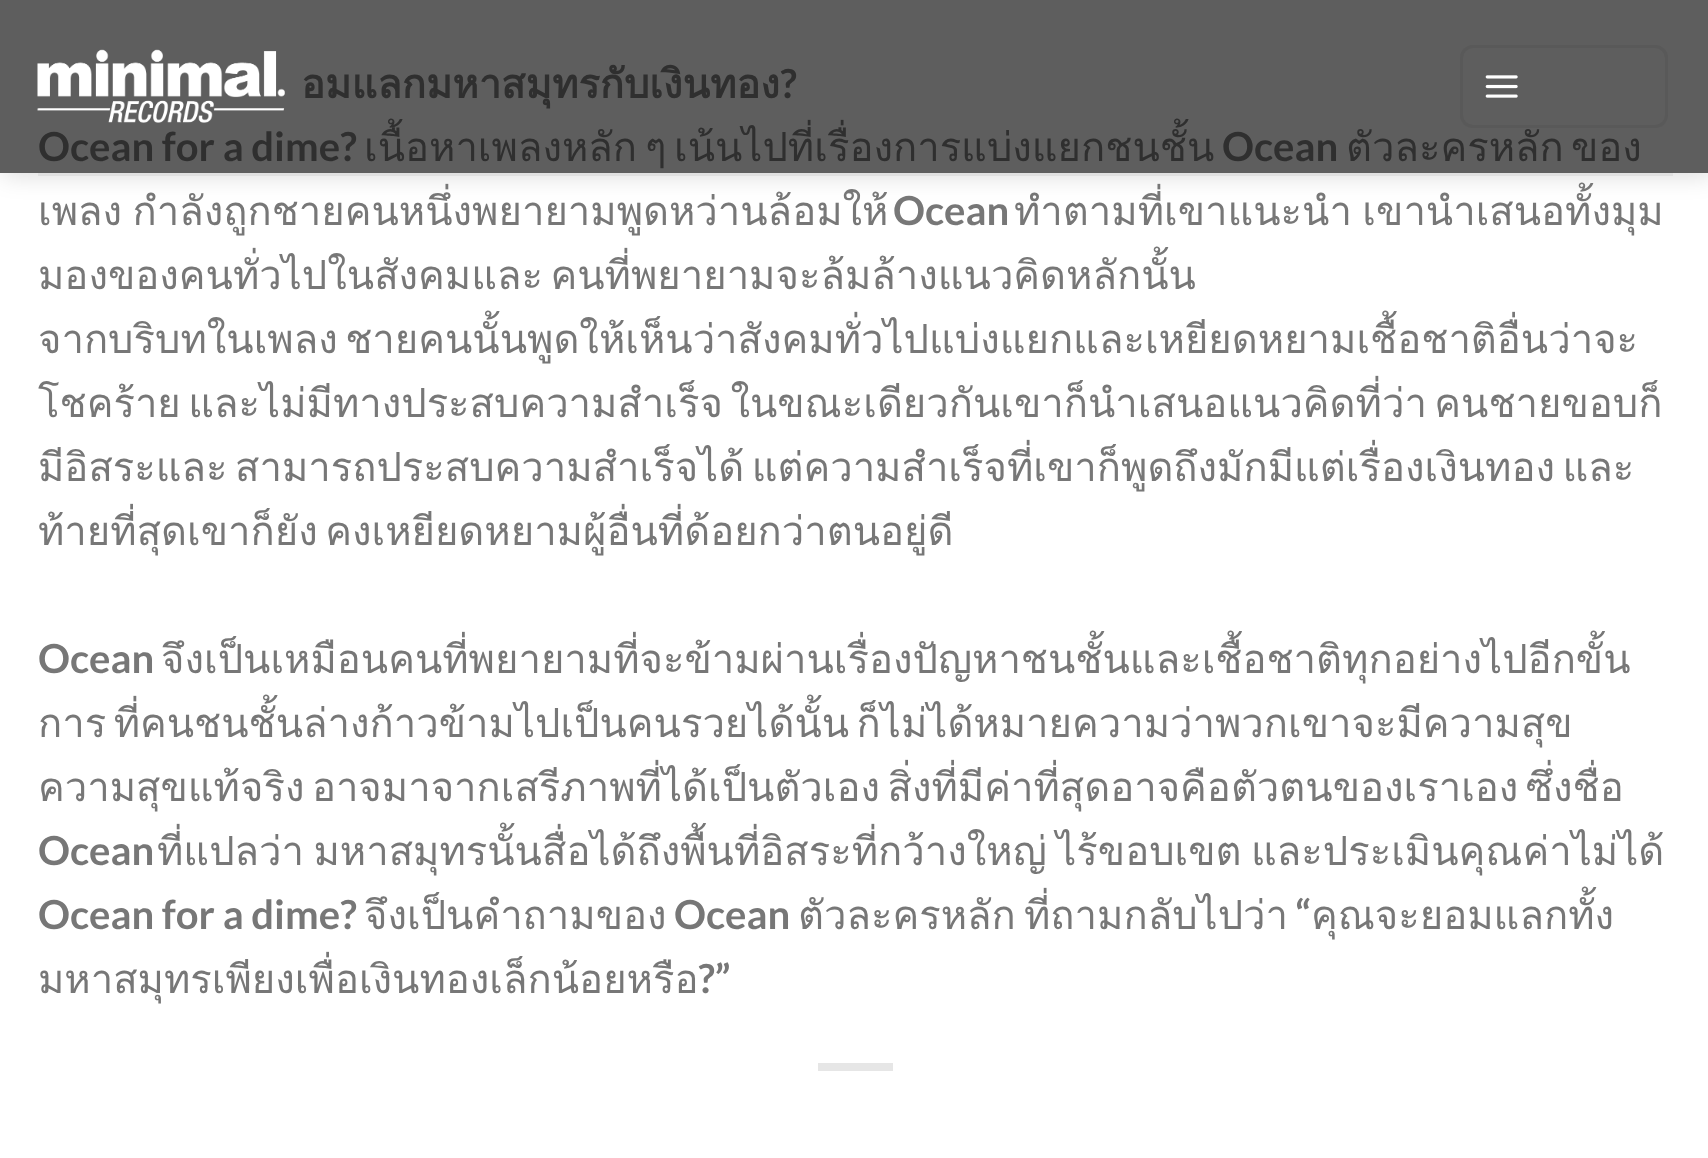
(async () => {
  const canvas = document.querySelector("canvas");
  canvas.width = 1708;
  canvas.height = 1158;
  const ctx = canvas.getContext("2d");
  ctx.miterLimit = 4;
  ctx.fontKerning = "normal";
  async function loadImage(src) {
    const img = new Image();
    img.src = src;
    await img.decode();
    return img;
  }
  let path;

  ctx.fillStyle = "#ffffff";
  ctx.fillRect(0, 0, 1708, 1158);
  ctx.save();
  path = new Path2D("M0 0H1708V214H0ZM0 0H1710V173H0Z");
  ctx.clip(path, "evenodd");
  ctx.fillStyle = "rgba(0, 0, 0, 0.15)";
  ctx.filter = "blur(12.5px)";
  ctx.beginPath();
  ctx.rect(3, 3, 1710, 172);
  ctx.fill();
  ctx.filter = "none";
  ctx.restore();
  ctx.fillStyle = "#e0e0e0";
  ctx.fillRect(38, 173, 1635, 3);
  ctx.fillStyle = "#e6e6e6";
  ctx.fillRect(818, 1063, 75, 8);
  ctx.wordSpacing = "-6px";
  ctx.font = "bold 40px Loma";
  ctx.fillStyle = "#777777";
  ctx.fillText("อมแลกมหาสมุทรกับเงินทอง", 301, 98);
  ctx.wordSpacing = "0px";
  ctx.font = "bold 40px Lato";
  ctx.fillText("?", 780, 98);
  ctx.fillText("Ocean for a dime?", 38, 161);
  ctx.font = "40px Loma";
  for (const [text, x, y] of [
    ["เนื้อหาเพลงหลัก", 364, 161],
    ["ๆ", 645, 161],
    ["เน้นไปที่เรื่องการแบ่งแยกชนชั้น", 674, 161],
  ]) {
    ctx.fillText(text, x, y);
  }
  ctx.font = "bold 40px Lato";
  ctx.fillText("Ocean", 1222, 161);
  ctx.font = "40px Loma";
  ctx.fillText("ตัวละครหลัก", 1346, 161);
  ctx.fillText("ของ", 1571, 161);
  ctx.fillStyle = "rgba(10, 10, 10, 0.66)";
  ctx.fillRect(0, 0, 1708, 173);
  ctx.beginPath();
  ctx.roundRect(1461.5, 46.5, 205, 80, 11.5);
  ctx.strokeStyle = "#595959";
  ctx.lineWidth = 3;
  ctx.stroke();
  ctx.drawImage(await loadImage("img/2.png"), 1485, 75, 33, 23);
  ctx.drawImage(await loadImage("img/1.png"), 37, 49, 248, 74);
  ctx.wordSpacing = "-3px";
  ctx.fillStyle = "#777777";
  ctx.fillText("เพลง กําลังถูกชายคนหนึ่งพยายามพูดหว่านล้อมให้", 38, 225);
  ctx.wordSpacing = "0px";
  ctx.font = "bold 40px Lato";
  ctx.fillText("Ocean", 893, 225);
  ctx.wordSpacing = "-3px";
  ctx.font = "40px Loma";
  ctx.fillText("ทําตามที่เขาแนะนํา เขานําเสนอทั้งมุม", 1014, 225);
  ctx.wordSpacing = "-6px";
  for (const [text, x, y] of [
    ["มองของคนทั่วไปในสังคมและ คนที่พยายามจะล้มล้างแนวคิดหลักนั้น", 38, 289],
    ["จากบริบทในเพลง ชายคนนั้นพูดให้เห็นว่าสังคมทั่วไปแบ่งแยกและเหยียดหยามเชื้อชาติอื่นว่าจะ", 38, 353],
    ["โชคร้าย และไม่มีทางประสบความสําเร็จ ในขณะเดียวกันเขาก็นําเสนอแนวคิดที่ว่า คนชายขอบก็", 38, 417],
    ["มีอิสระและ สามารถประสบความสําเร็จได้ แต่ความสําเร็จที่เขาก็พูดถึงมักมีแต่เรื่องเงินทอง และ", 38, 481],
    ["ท้ายที่สุดเขาก็ยัง คงเหยียดหยามผู้อื่นที่ด้อยกว่าตนอยู่ดี", 38, 545],
  ]) {
    ctx.fillText(text, x, y);
  }
  ctx.wordSpacing = "0px";
  ctx.font = "bold 40px Lato";
  ctx.fillText("Ocean", 38, 673);
  ctx.font = "40px Loma";
  ctx.fillText("จึงเป็นเหมือนคนที่พยายามที่จะข้ามผ่านเรื่องปัญหาชนชั้นและเชื้อชาติทุกอย่างไปอีกขั้น", 161, 673);
  ctx.wordSpacing = "-6px";
  ctx.fillText("การ ที่คนชนชั้นล่างก้าวข้ามไปเป็นคนรวยได้นั้น ก็ไม่ได้หมายความว่าพวกเขาจะมีความสุข", 38, 737);
  ctx.fillText("ความสุขแท้จริง อาจมาจากเสรีภาพที่ได้เป็นตัวเอง สิ่งที่มีค่าที่สุดอาจคือตัวตนของเราเอง ซึ่งชื่อ", 38, 801);
  ctx.wordSpacing = "0px";
  ctx.font = "bold 40px Lato";
  ctx.fillText("Ocean", 38, 865);
  ctx.wordSpacing = "-4px";
  ctx.font = "40px Loma";
  ctx.fillText("ที่แปลว่า มหาสมุทรนั้นสื่อได้ถึงพื้นที่อิสระที่กว้างใหญ่ ไร้ขอบเขต และประเมินคุณค่าไม่ได้", 157, 865);
  ctx.wordSpacing = "0px";
  ctx.font = "bold 40px Lato";
  ctx.fillText("Ocean for a dime?", 38, 929);
  ctx.font = "40px Loma";
  ctx.fillText("จึงเป็นคําถามของ", 364, 929);
  ctx.font = "bold 40px Lato";
  ctx.fillText("Ocean", 674, 929);
  ctx.font = "40px Loma";
  ctx.fillText("ตัวละครหลัก", 798, 929);
  ctx.fillText("ที่ถามกลับไปว่า", 1024, 929);
  ctx.font = "bold 40px Lato";
  ctx.fillText("“", 1295, 929);
  ctx.font = "40px Loma";
  ctx.fillText("คุณจะยอมแลกทั้ง", 1311, 929);
  ctx.fillText("มหาสมุทรเพียงเพื่อเงินทองเล็กน้อยหรือ", 38, 993);
  ctx.font = "bold 40px Lato";
  ctx.fillText("?”", 698, 993);
})();
